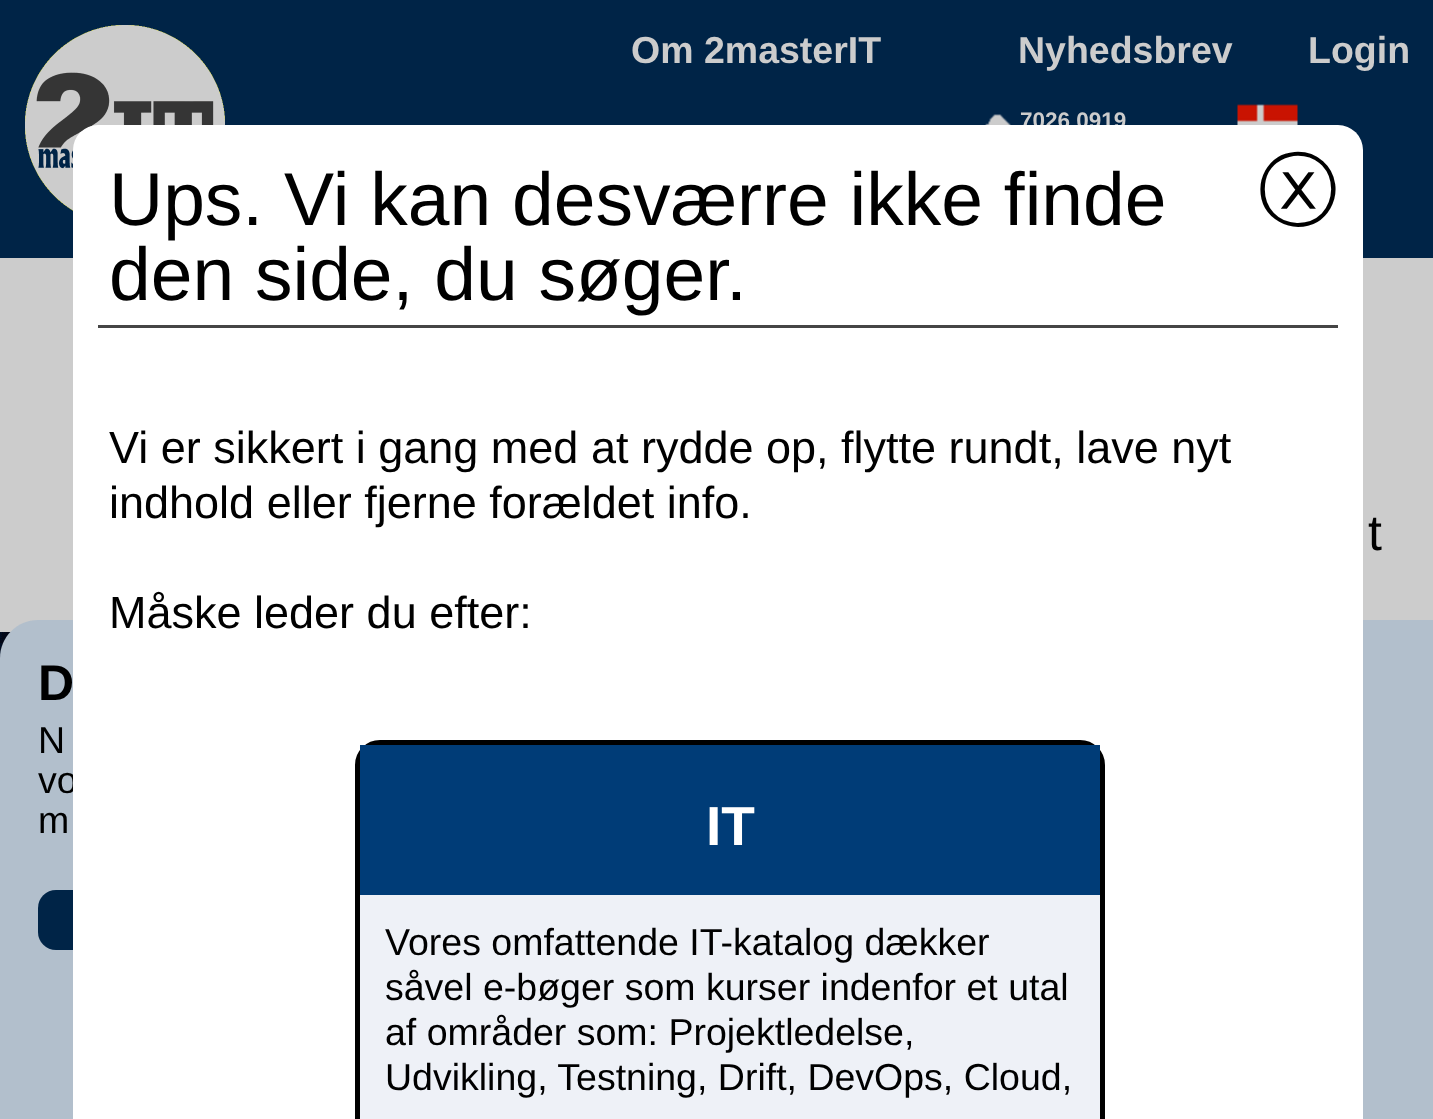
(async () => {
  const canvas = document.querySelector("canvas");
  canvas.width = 1433;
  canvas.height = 1119;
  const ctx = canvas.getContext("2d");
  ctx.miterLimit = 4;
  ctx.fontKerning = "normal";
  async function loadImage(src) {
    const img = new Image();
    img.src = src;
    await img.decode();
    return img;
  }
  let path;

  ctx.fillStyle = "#cccccc";
  ctx.fillRect(0, 0, 1433, 1119);
  ctx.fillStyle = "#002447";
  ctx.fillRect(0, 0, 1433, 258);
  ctx.drawImage(await loadImage("img/1.png"), 25, 25, 200, 186);
  ctx.drawImage(await loadImage("img/2.png"), 985, 114, 26, 11);
  ctx.drawImage(await loadImage("img/3.png"), 1237, 104, 61, 21);
  ctx.drawImage(await loadImage("img/4.png"), 0, 632, 11, 26);
  ctx.fillStyle = "#b2bfcc";
  path = new Path2D("M38 620H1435V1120H0V658C0 637 17 620 38 620Z");
  ctx.fill(path);
  ctx.fillStyle = "#002447";
  ctx.beginPath();
  ctx.roundRect(38, 890, 200, 60, 18);
  ctx.fill();
  ctx.font = "bold 37.5px Liberation Sans";
  ctx.fillStyle = "#cccccc";
  for (const [text, x, y] of [
    ["Om 2masterIT", 631, 63],
    ["Nyhedsbrev", 1018, 63],
    ["Login", 1308, 63],
  ]) {
    ctx.fillText(text, x, y);
  }
  ctx.font = "bold 22.5px Liberation Sans";
  ctx.fillText("7026 0919", 1020, 128);
  ctx.font = "50px Liberation Sans";
  ctx.fillStyle = "#000000";
  ctx.fillText("t", 1368, 550);
  ctx.font = "bold 50px Liberation Sans";
  ctx.fillText("D", 38, 700);
  ctx.font = "37.5px Liberation Sans";
  ctx.fillText("N", 38, 753);
  ctx.fillText("vo", 38, 793);
  ctx.fillStyle = "#ffffff";
  ctx.beginPath();
  ctx.roundRect(73, 125, 1290, 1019, 25);
  ctx.fill();
  ctx.fillStyle = "#eef1f7";
  ctx.beginPath();
  ctx.roundRect(357.5, 742.5, 745, 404, 22.5);
  ctx.fill();
  ctx.strokeStyle = "#000000";
  ctx.lineWidth = 5;
  ctx.stroke();
  ctx.fillStyle = "#000000";
  for (const [text, x, y] of [
    ["Udvikling, Testning, Drift, DevOps, Cloud,", 385, 1090],
    ["af områder som: Projektledelse,", 385, 1045],
    ["såvel e-bøger som kurser indenfor et utal", 385, 1000],
    ["Vores omfattende IT-katalog dækker", 385, 955],
  ]) {
    ctx.fillText(text, x, y);
  }
  ctx.fillStyle = "#003c77";
  ctx.fillRect(360, 745, 740, 150);
  ctx.font = "bold 55px Liberation Sans";
  ctx.fillStyle = "#ffffff";
  ctx.fillText("IT", 706, 845);
  ctx.font = "500 80px WenQuanYi Zen Hei";
  ctx.fillStyle = "#000000";
  ctx.fillText("ⓧ", 1258, 218);
  ctx.font = "45px Liberation Sans";
  for (const [text, x, y] of [
    ["Måske leder du efter:", 109, 628],
    ["indhold eller fjerne forældet info.", 109, 518],
    ["Vi er sikkert i gang med at rydde op, flytte rundt, lave nyt", 109, 463],
  ]) {
    ctx.fillText(text, x, y);
  }
  ctx.font = "75px Liberation Sans";
  ctx.fillText("den side, du søger.", 109, 300);
  ctx.fillText("Ups. Vi kan desværre ikke finde", 109, 225);
  ctx.fillStyle = "#454545";
  ctx.fillRect(98, 325, 1240, 3);
  ctx.font = "37.5px Liberation Sans";
  ctx.fillStyle = "#000000";
  ctx.fillText("m", 38, 833);
})();
